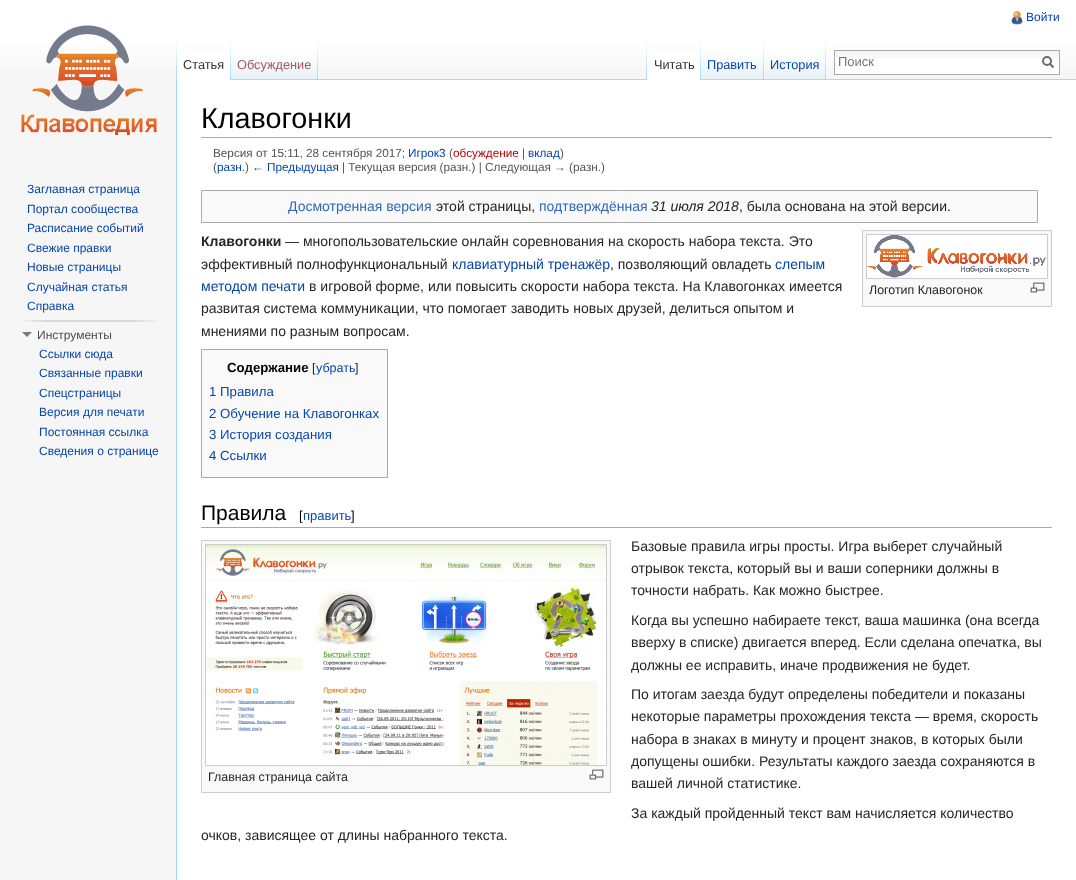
(async () => {
  const canvas = document.querySelector("canvas");
  canvas.width = 1076;
  canvas.height = 880;
  const ctx = canvas.getContext("2d");
  ctx.miterLimit = 4;
  ctx.fontKerning = "normal";
  async function loadImage(src) {
    const img = new Image();
    img.src = src;
    await img.decode();
    return img;
  }
  let gradient, path;

  ctx.fillStyle = "#f6f6f6";
  ctx.fillRect(0, 0, 1076, 880);
  gradient = ctx.createLinearGradient(538, 0, 538, 80);
  gradient.addColorStop(0.5, "#ffffff");
  gradient.addColorStop(1, "#f6f6f6");
  ctx.fillStyle = gradient;
  ctx.fillRect(0, 0, 1076, 69);
  ctx.drawImage(await loadImage("img/1.png"), 1011, 11, 12, 14);
  ctx.drawImage(await loadImage("img/2.png"), 176, 40, 1, 39);
  ctx.fillStyle = "#ffffff";
  ctx.fillRect(177, 51, 53, 29);
  ctx.drawImage(await loadImage("img/3.png"), 230, 40, 1, 40);
  ctx.drawImage(await loadImage("img/4.png"), 231, 40, 87, 40);
  ctx.drawImage(await loadImage("img/5.png"), 317, 40, 1, 39);
  ctx.drawImage(await loadImage("img/2.png"), 646, 40, 1, 39);
  ctx.fillStyle = "#a7d7f9";
  ctx.fillRect(318, 79, 758, 1);
  ctx.fillStyle = "#ffffff";
  ctx.fillRect(647, 51, 53, 29);
  ctx.drawImage(await loadImage("img/3.png"), 700, 40, 1, 40);
  ctx.drawImage(await loadImage("img/6.png"), 701, 40, 63, 40);
  ctx.drawImage(await loadImage("img/5.png"), 763, 40, 1, 39);
  ctx.drawImage(await loadImage("img/7.png"), 764, 40, 62, 40);
  ctx.drawImage(await loadImage("img/5.png"), 825, 40, 1, 39);
  ctx.fillRect(835, 59, 224, 15);
  ctx.drawImage(await loadImage("img/8.png"), 835, 51, 224, 8);
  ctx.strokeStyle = "#aaaaaa";
  ctx.strokeRect(834.5, 50.5, 225, 24);
  path = new Path2D("M1053.5 67.5L1049.5 63.5");
  ctx.strokeStyle = "#6c6c6c";
  ctx.lineWidth = 2;
  ctx.stroke(path);
  ctx.beginPath();
  ctx.arc(1047, 61, 4, 0, Math.PI * 2);
  ctx.stroke();
  ctx.drawImage(await loadImage("img/9.png"), 21, 25, 136, 111);
  ctx.drawImage(await loadImage("img/10.png"), 22, 320, 135, 2);
  ctx.fillStyle = "#797979";
  path = new Path2D("M32 332L27 337L22 332Z");
  ctx.fill(path);
  for (const [x, y, w, h, color] of [
    [177, 80, 899, 800, "#ffffff"],
    [176, 79, 1, 801, "#a7d7f9"],
    [201, 137, 851, 1, "#aaaaaa"],
  ]) {
    ctx.fillStyle = color;
    ctx.fillRect(x, y, w, h);
  }
  ctx.fillStyle = "#f9f9f9";
  ctx.beginPath();
  ctx.rect(201.5, 190.5, 836, 32);
  ctx.fill();
  ctx.strokeStyle = "#aaaaaa";
  ctx.lineWidth = 1;
  ctx.stroke();
  ctx.beginPath();
  ctx.rect(862.5, 230.5, 189, 76);
  ctx.fill();
  ctx.strokeStyle = "#cccccc";
  ctx.stroke();
  ctx.fillStyle = "#ffffff";
  ctx.beginPath();
  ctx.rect(866.5, 234.5, 181, 44);
  ctx.fill();
  ctx.stroke();
  ctx.drawImage(await loadImage("img/11.png"), 867, 235, 180, 43);
  ctx.drawImage(await loadImage("img/12.png"), 1030, 282, 15, 11);
  ctx.fillStyle = "#f9f9f9";
  ctx.beginPath();
  ctx.rect(201.5, 349.5, 186, 128);
  ctx.fill();
  ctx.strokeStyle = "#aaaaaa";
  ctx.stroke();
  ctx.fillStyle = "#aaaaaa";
  ctx.fillRect(201, 527, 851, 1);
  ctx.fillStyle = "#f9f9f9";
  ctx.beginPath();
  ctx.rect(201.5, 540.5, 409, 252);
  ctx.fill();
  ctx.strokeStyle = "#cccccc";
  ctx.stroke();
  ctx.strokeRect(205.5, 544.5, 401, 221);
  ctx.drawImage(await loadImage("img/13.png"), 206, 545, 400, 220);
  ctx.drawImage(await loadImage("img/12.png"), 589, 769, 15, 11);
  ctx.font = "12px Liberation Sans";
  ctx.fillStyle = "#0645ad";
  ctx.fillText("Войти", 1026, 21);
  ctx.font = "12.75px Liberation Sans";
  ctx.fillStyle = "#333333";
  ctx.fillText("Статья", 183, 69);
  ctx.fillStyle = "#a55858";
  ctx.fillText("Обсуждение", 237, 69);
  ctx.fillStyle = "#333333";
  ctx.fillText("Читать", 654, 69);
  ctx.fillStyle = "#0645ad";
  ctx.fillText("Править", 707, 69);
  ctx.fillText("История", 770, 69);
  ctx.font = "13px Liberation Sans";
  ctx.fillStyle = "#757575";
  ctx.fillText("Поиск", 838, 66);
  ctx.font = "12px Liberation Sans";
  ctx.fillStyle = "#0645ad";
  for (const [text, x, y] of [
    ["Заглавная страница", 27, 193],
    ["Портал сообщества", 27, 213],
    ["Расписание событий", 27, 232],
    ["Свежие правки", 27, 252],
    ["Новые страницы", 27, 271],
    ["Случайная статья", 27, 291],
    ["Справка", 27, 310],
  ]) {
    ctx.fillText(text, x, y);
  }
  ctx.fillStyle = "#4d4d4d";
  ctx.fillText("Инструменты", 37, 339);
  ctx.fillStyle = "#0645ad";
  for (const [text, x, y] of [
    ["Ссылки сюда", 39, 358],
    ["Связанные правки", 39, 377],
    ["Спецстраницы", 39, 397],
    ["Версия для печати", 39, 416],
    ["Постоянная ссылка", 39, 436],
    ["Сведения о странице", 39, 455],
  ]) {
    ctx.fillText(text, x, y);
  }
  ctx.font = "28.75px Liberation Sans";
  ctx.fillStyle = "#000000";
  ctx.fillText("Клавогонки", 201, 128);
  ctx.font = "11.75px Liberation Sans";
  ctx.fillStyle = "#545454";
  ctx.fillText("Версия от 15:11, 28 сентября 2017;", 213, 157);
  ctx.fillStyle = "#0645ad";
  ctx.fillText("Игрок3", 408, 157);
  ctx.fillStyle = "#545454";
  ctx.fillText("(", 449, 157);
  ctx.fillStyle = "#ba0000";
  ctx.fillText("обсуждение", 453, 157);
  ctx.fillStyle = "#545454";
  ctx.fillText("|", 522, 157);
  ctx.fillStyle = "#0645ad";
  ctx.fillText("вклад", 528, 157);
  ctx.fillStyle = "#545454";
  ctx.fillText(")", 560, 157);
  ctx.fillText("(", 213, 171);
  ctx.fillStyle = "#0645ad";
  ctx.fillText("разн.", 217, 171);
  ctx.fillStyle = "#545454";
  ctx.fillText(")", 245, 171);
  ctx.fillStyle = "#0645ad";
  ctx.fillText("← Предыдущая", 252, 171);
  ctx.fillStyle = "#545454";
  ctx.fillText("| Текущая версия (разн.) | Следующая → (разн.)", 342, 171);
  ctx.font = "14px Liberation Sans";
  ctx.fillStyle = "#3366bb";
  ctx.fillText("Досмотренная версия", 288, 211);
  ctx.fillStyle = "#252525";
  ctx.fillText("этой страницы,", 436, 211);
  ctx.fillStyle = "#3366bb";
  ctx.fillText("подтверждённая", 539, 211);
  ctx.font = "italic 14px Liberation Sans";
  ctx.fillStyle = "#252525";
  ctx.fillText("31 июля 2018", 651, 211);
  ctx.font = "14px Liberation Sans";
  ctx.fillText(", была основана на этой версии.", 739, 211);
  ctx.font = "bold 14px Liberation Sans";
  ctx.fillText("Клавогонки", 201, 246);
  ctx.font = "14px Liberation Sans";
  ctx.fillText("— многопользовательские онлайн соревнования на скорость набора текста. Это", 285, 246);
  ctx.fillText("эффективный полнофункциональный", 201, 269);
  ctx.fillStyle = "#0645ad";
  ctx.fillText("клавиатурный тренажёр", 452, 269);
  ctx.fillStyle = "#252525";
  ctx.fillText(", позволяющий овладеть", 610, 269);
  ctx.fillStyle = "#0645ad";
  ctx.fillText("слепым", 775, 269);
  ctx.fillText("методом печати", 201, 291);
  ctx.fillStyle = "#252525";
  for (const [text, x, y] of [
    ["в игровой форме, или повысить скорости набора текста. На Клавогонках имеется", 309, 291],
    ["развитая система коммуникации, что помогает заводить новых друзей, делиться опытом и", 201, 313],
    ["мнениями по разным вопросам.", 201, 336],
  ]) {
    ctx.fillText(text, x, y);
  }
  ctx.font = "12.4px Liberation Sans";
  ctx.fillText("Логотип Клавогонок", 869, 294);
  ctx.font = "bold 13.25px Liberation Sans";
  ctx.fillStyle = "#000000";
  ctx.fillText("Содержание", 227, 372);
  ctx.font = "12.5px Liberation Sans";
  ctx.fillStyle = "#252525";
  ctx.fillText("[", 312, 372);
  ctx.fillStyle = "#0645ad";
  ctx.fillText("убрать", 316, 372);
  ctx.fillStyle = "#252525";
  ctx.fillText("]", 355, 372);
  ctx.font = "13.25px Liberation Sans";
  ctx.fillStyle = "#0645ad";
  for (const [text, x, y] of [
    ["1 Правила", 209, 396],
    ["2 Обучение на Клавогонках", 209, 418],
    ["3 История создания", 209, 439],
    ["4 Ссылки", 209, 460],
  ]) {
    ctx.fillText(text, x, y);
  }
  ctx.font = "21px Liberation Sans";
  ctx.fillStyle = "#000000";
  ctx.fillText("Правила", 201, 520);
  ctx.font = "13px Liberation Sans";
  ctx.fillText("[", 299, 520);
  ctx.fillStyle = "#0645ad";
  ctx.fillText("править", 303, 520);
  ctx.fillStyle = "#000000";
  ctx.fillText("]", 351, 520);
  ctx.font = "14px Liberation Sans";
  ctx.fillStyle = "#252525";
  for (const [text, x, y] of [
    ["Базовые правила игры просты. Игра выберет случайный", 631, 551],
    ["отрывок текста, который вы и ваши соперники должны в", 631, 573],
    ["точности набрать. Как можно быстрее.", 631, 595],
    ["Когда вы успешно набираете текст, ваша машинка (она всегда", 631, 625],
    ["вверху в списке) двигается вперед. Если сделана опечатка, вы", 631, 647],
    ["должны ее исправить, иначе продвижения не будет.", 631, 670],
  ]) {
    ctx.fillText(text, x, y);
  }
  ctx.font = "12.4px Liberation Sans";
  ctx.fillText("Главная страница сайта", 208, 781);
  ctx.font = "14px Liberation Sans";
  for (const [text, x, y] of [
    ["По итогам заезда будут определены победители и показаны", 631, 699],
    ["некоторые параметры прохождения текста — время, скорость", 631, 721],
    ["набора в знаках в минуту и процент знаков, в которых были", 631, 744],
    ["допущены ошибки. Результаты каждого заезда сохраняются в", 631, 766],
    ["вашей личной статистике.", 631, 788],
    ["За каждый пройденный текст вам начисляется количество", 631, 818],
    ["очков, зависящее от длины набранного текста.", 201, 840],
  ]) {
    ctx.fillText(text, x, y);
  }
})();
